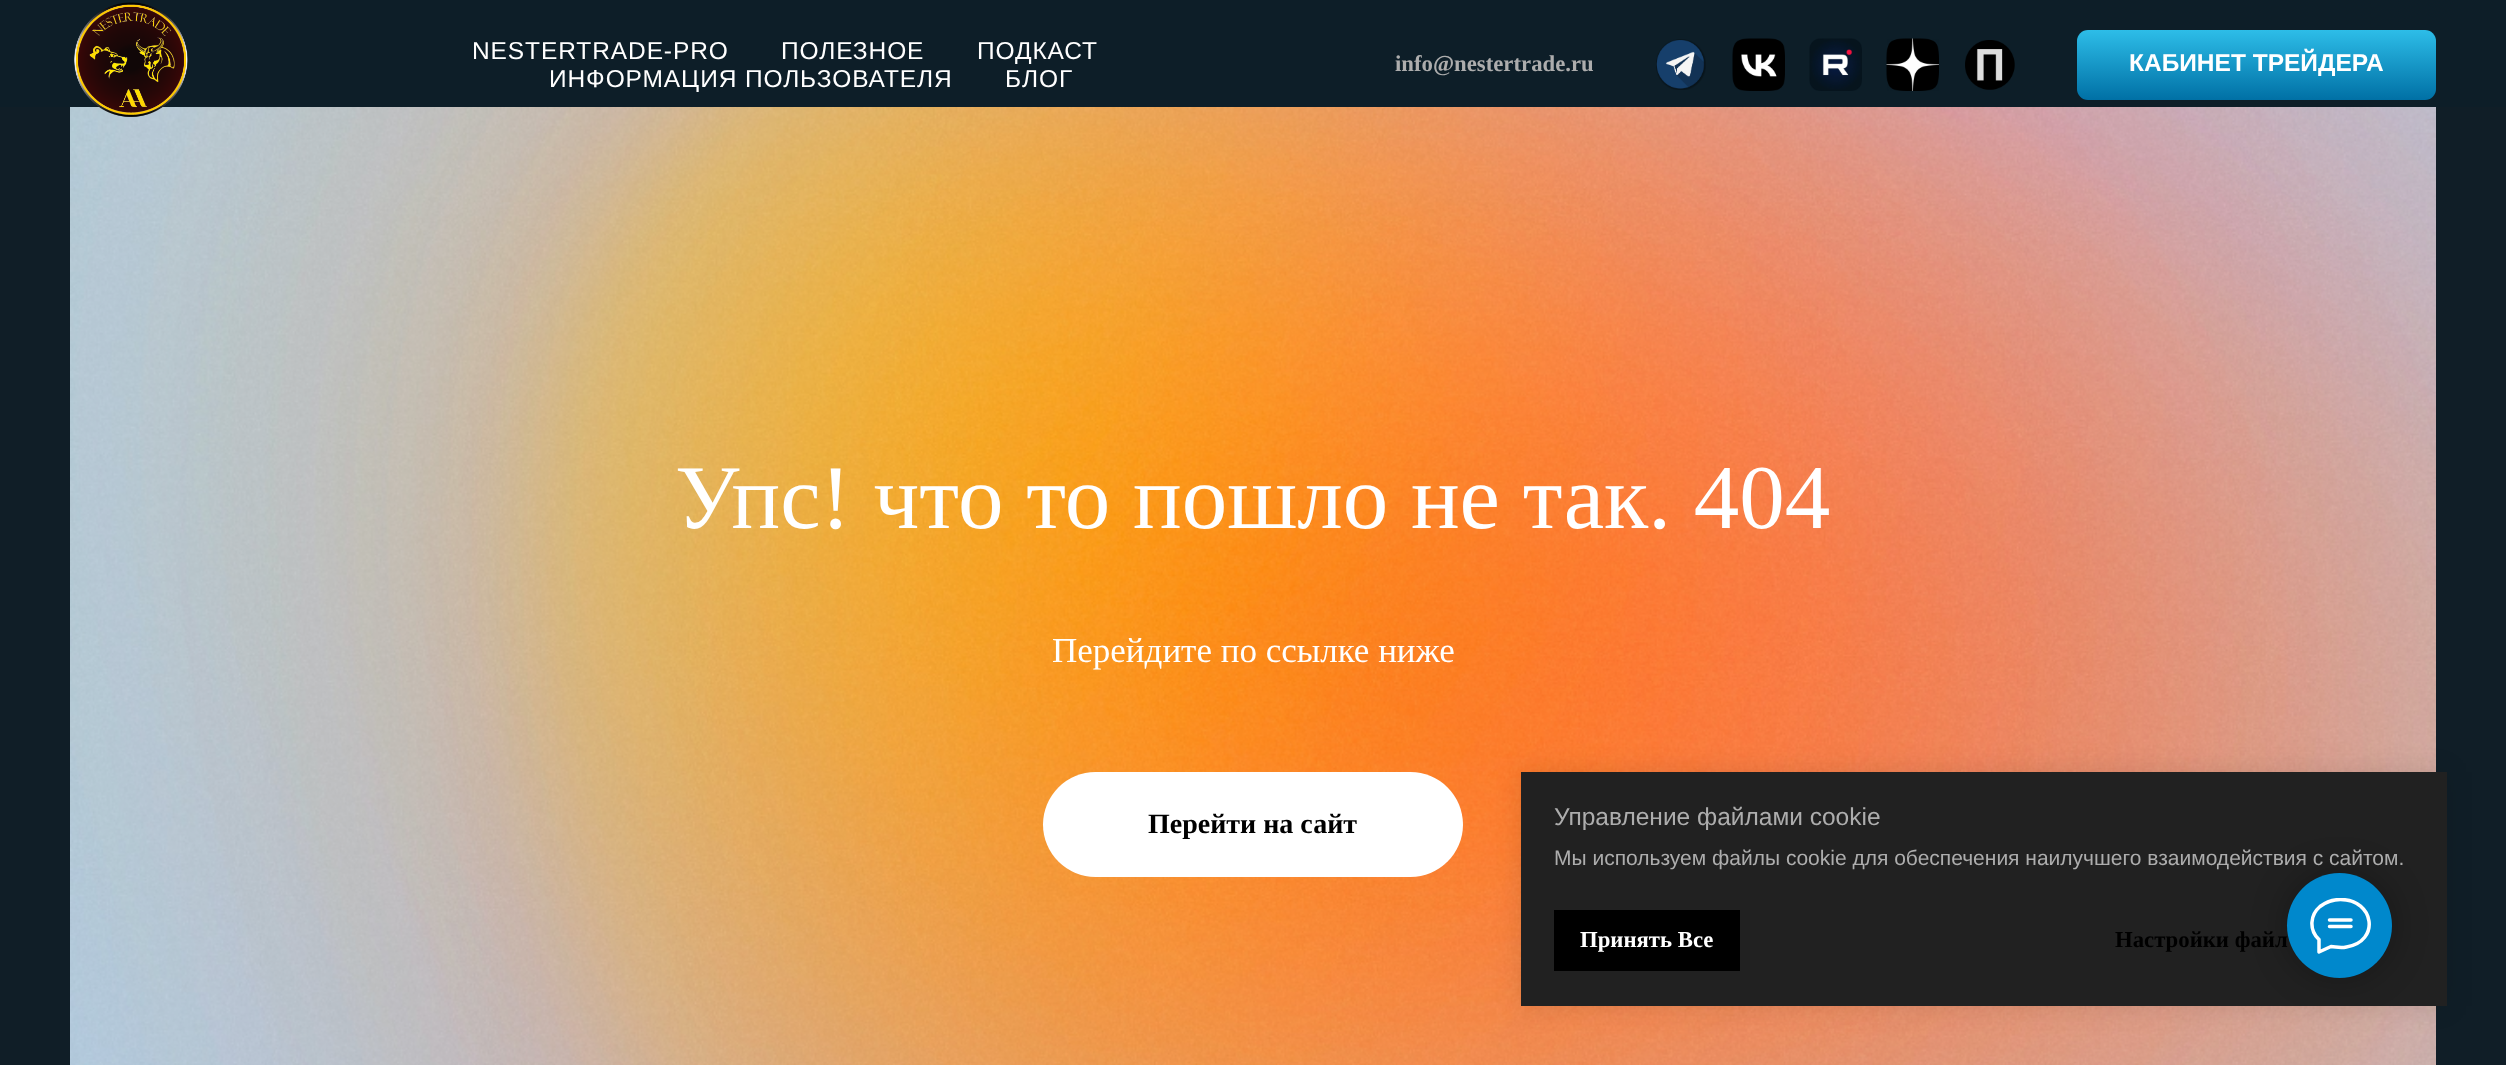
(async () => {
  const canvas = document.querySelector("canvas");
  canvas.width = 2506;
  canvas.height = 1065;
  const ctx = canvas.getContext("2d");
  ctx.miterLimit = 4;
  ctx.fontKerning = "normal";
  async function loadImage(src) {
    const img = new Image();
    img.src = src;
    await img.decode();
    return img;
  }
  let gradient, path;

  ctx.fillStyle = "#101e27";
  ctx.fillRect(0, 0, 2506, 1065);
  ctx.fillStyle = "#0d1e28";
  ctx.fillRect(0, 0, 2506, 107);
  ctx.drawImage(await loadImage("img/7.png"), 70, 107, 2366, 958);
  ctx.drawImage(await loadImage("img/1.png"), 74, 2, 114, 115);
  ctx.drawImage(await loadImage("img/2.png"), 1656, 39, 50, 51);
  ctx.drawImage(await loadImage("img/3.png"), 1732, 38, 53, 53);
  ctx.drawImage(await loadImage("img/4.png"), 1809, 38, 53, 53);
  ctx.drawImage(await loadImage("img/5.png"), 1886, 38, 53, 53);
  ctx.drawImage(await loadImage("img/6.png"), 1965, 40, 50, 50);
  gradient = ctx.createLinearGradient(2257, 30, 2257, 100);
  gradient.addColorStop(0, "#2dbde8");
  gradient.addColorStop(1, "#0070a5");
  ctx.fillStyle = gradient;
  ctx.beginPath();
  ctx.roundRect(2077, 30, 359, 70, 11);
  ctx.fill();
  ctx.fillStyle = "#ffffff";
  ctx.beginPath();
  ctx.roundRect(1043, 772, 420, 105, 52.5);
  ctx.fill();
  ctx.fillStyle = "rgba(0, 0, 0, 0.1)";
  ctx.filter = "blur(13px)";
  ctx.beginPath();
  ctx.rect(1521, 772, 926, 234);
  ctx.fill();
  ctx.filter = "none";
  ctx.fillStyle = "#212121";
  ctx.fillRect(1521, 772, 926, 234);
  ctx.fillStyle = "#000000";
  ctx.fillRect(1554, 910, 186, 61);
  ctx.fillStyle = "rgba(0, 0, 0, 0.3)";
  ctx.filter = "blur(17.5px)";
  ctx.beginPath();
  ctx.roundRect(2287, 873, 105, 105, 52.5);
  ctx.fill();
  ctx.filter = "none";
  ctx.fillStyle = "#0088cc";
  ctx.beginPath();
  ctx.arc(2339.5, 925.5, 52.5, 0, Math.PI * 2);
  ctx.fill();
  ctx.save();
  ctx.beginPath();
  ctx.rect(2310, 898, 61, 56);
  ctx.clip();
  path = new Path2D("M2329.5 920H2351M2329.5 926.5H2351M2318.5 939C2309 929.5 2310 915 2320 906.5C2326 902 2333.5 899.5 2340.5 899.5C2374.5 899.5 2380.5 941.5 2346.5 947C2340 948.5 2337 947 2331 946.5L2319 952V939.5Z");
  ctx.strokeStyle = "#ffffff";
  ctx.lineWidth = 3.5;
  ctx.lineCap = "round";
  ctx.lineJoin = "round";
  ctx.stroke(path);
  ctx.restore();
  ctx.letterSpacing = "0.9px";
  ctx.font = "24.5px Liberation Sans";
  ctx.fillStyle = "#ffffff";
  for (const [text, x, y] of [
    ["NESTERTRADE-PRO", 472, 59],
    ["ПОЛЕЗНОЕ", 781, 59],
    ["ПОДКАСТ", 977, 59],
    ["ИНФОРМАЦИЯ ПОЛЬЗОВАТЕЛЯ", 549, 87],
    ["БЛОГ", 1005, 87],
  ]) {
    ctx.fillText(text, x, y);
  }
  ctx.letterSpacing = "0px";
  ctx.font = "bold 22.75px Liberation Serif";
  ctx.fillStyle = "#adadad";
  ctx.fillText("info@nestertrade.ru", 1395, 71);
  ctx.font = "bold 24.5px Liberation Sans";
  ctx.fillStyle = "#ffffff";
  ctx.fillText("КАБИНЕТ ТРЕЙДЕРА", 2129, 71);
  ctx.font = "91px Liberation Serif";
  ctx.fillText("Упс! что то пошло не так. 404", 675, 528);
  ctx.font = "35px Liberation Serif";
  ctx.fillText("Перейдите по ссылке ниже", 1052, 662);
  ctx.font = "bold 28px Liberation Serif";
  ctx.fillStyle = "#000000";
  ctx.fillText("Перейти на сайт", 1148, 833);
  ctx.font = "24.5px Liberation Sans";
  ctx.fillStyle = "#adadad";
  ctx.fillText("Управление файлами cookie", 1554, 825);
  ctx.font = "21px Liberation Sans";
  ctx.fillText("Мы используем файлы cookie для обеспечения наилучшего взаимодействия с сайтом.", 1554, 865);
  ctx.save();
  ctx.beginPath();
  ctx.rect(1580, 924, 133, 33);
  ctx.clip();
  ctx.font = "bold 22.75px Liberation Serif";
  ctx.fillStyle = "#ffffff";
  ctx.fillText("Принять Все", 1580, 947);
  ctx.restore();
  ctx.font = "bold 22.75px Liberation Serif";
  ctx.fillStyle = "#000000";
  ctx.fillText("Настройки файл", 2115, 947);
})();
